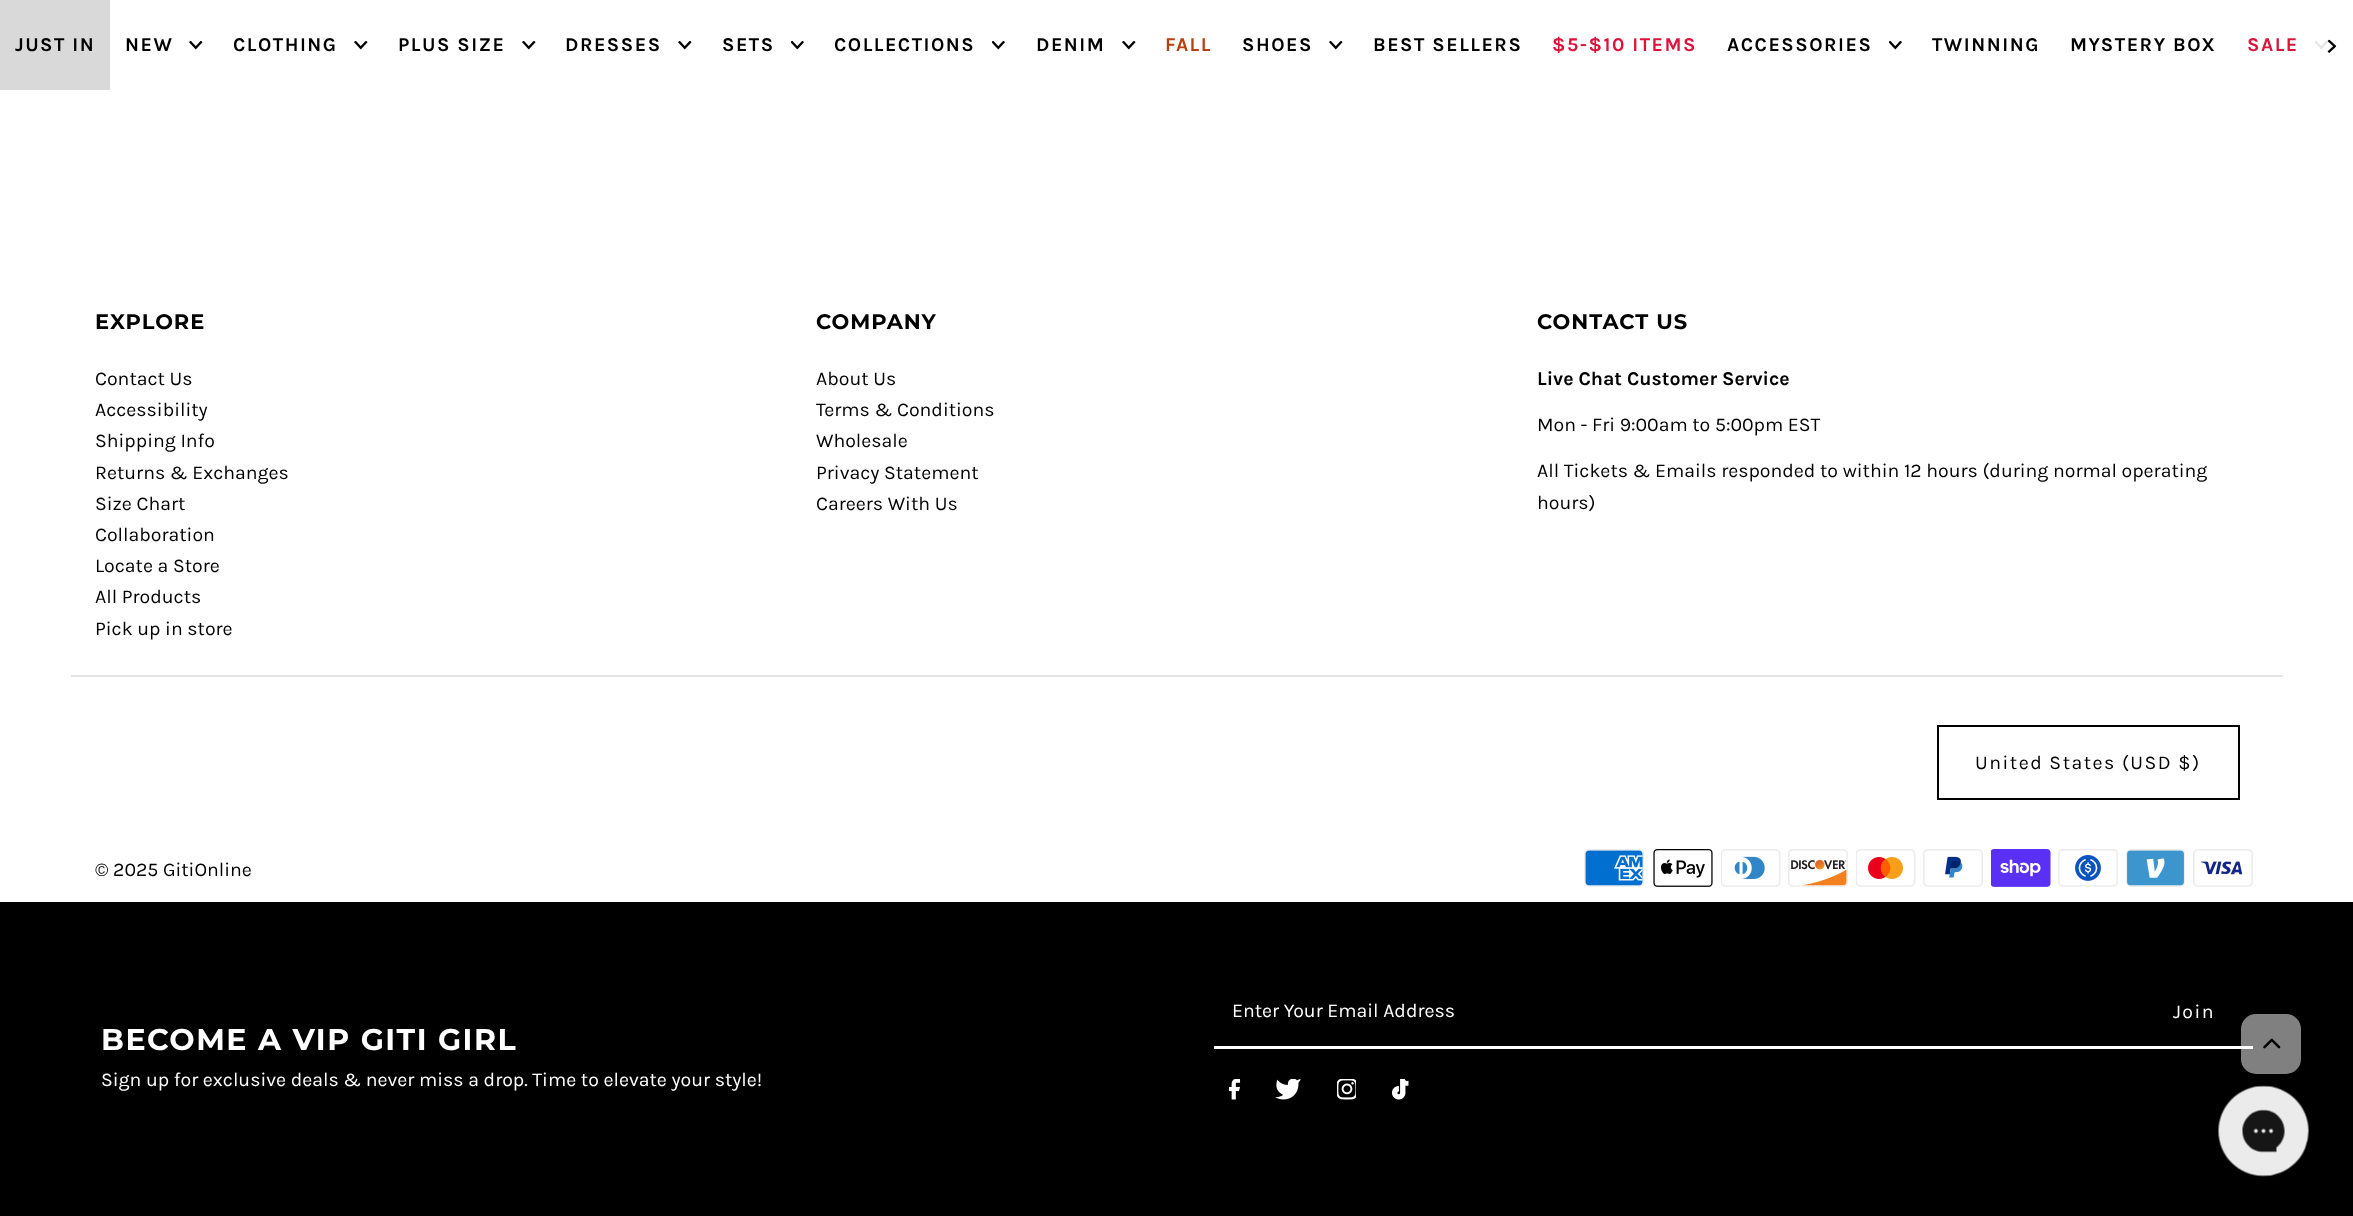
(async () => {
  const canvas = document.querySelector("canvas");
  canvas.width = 2353;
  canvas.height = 1216;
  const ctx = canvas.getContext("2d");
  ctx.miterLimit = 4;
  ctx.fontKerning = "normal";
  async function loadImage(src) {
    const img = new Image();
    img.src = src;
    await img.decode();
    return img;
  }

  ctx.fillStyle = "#ffffff";
  ctx.fillRect(0, 0, 2353, 1216);
  ctx.fillStyle = "#d9d9d9";
  ctx.fillRect(0, 0, 110, 90);
  ctx.drawImage(await loadImage("img/1.png"), 189, 41, 14, 9);
  ctx.drawImage(await loadImage("img/1.png"), 354, 41, 14, 9);
  ctx.drawImage(await loadImage("img/1.png"), 522, 41, 14, 9);
  ctx.drawImage(await loadImage("img/1.png"), 678, 41, 14, 9);
  ctx.drawImage(await loadImage("img/2.png"), 791, 41, 13, 9);
  ctx.drawImage(await loadImage("img/2.png"), 992, 41, 13, 9);
  ctx.drawImage(await loadImage("img/1.png"), 1122, 41, 14, 9);
  ctx.drawImage(await loadImage("img/1.png"), 1329, 41, 14, 9);
  ctx.drawImage(await loadImage("img/2.png"), 1889, 41, 13, 9);
  ctx.drawImage(await loadImage("img/3.png"), 2315, 41, 13, 9);
  ctx.drawImage(await loadImage("img/4.png"), 2327, 39, 10, 14);
  ctx.fillStyle = "#e5e5e5";
  ctx.fillRect(71, 675, 2212, 2);
  ctx.strokeStyle = "#000000";
  ctx.lineWidth = 2;
  ctx.strokeRect(1938, 726, 301, 73);
  ctx.drawImage(await loadImage("img/5.png"), 1584, 849, 60, 38);
  ctx.drawImage(await loadImage("img/6.png"), 1653, 849, 60, 38);
  ctx.drawImage(await loadImage("img/7.png"), 1721, 849, 60, 38);
  ctx.drawImage(await loadImage("img/8.png"), 1788, 849, 60, 38);
  ctx.drawImage(await loadImage("img/9.png"), 1856, 849, 60, 38);
  ctx.drawImage(await loadImage("img/10.png"), 1923, 849, 60, 38);
  ctx.drawImage(await loadImage("img/11.png"), 1991, 849, 60, 38);
  ctx.drawImage(await loadImage("img/12.png"), 2058, 849, 60, 38);
  ctx.drawImage(await loadImage("img/13.png"), 2126, 849, 59, 38);
  ctx.drawImage(await loadImage("img/14.png"), 2193, 849, 60, 38);
  ctx.fillStyle = "#000000";
  ctx.fillRect(0, 902, 2353, 314);
  ctx.fillStyle = "#ffffff";
  ctx.fillRect(1214, 1046, 1039, 3);
  ctx.drawImage(await loadImage("img/15.png"), 1229, 1079, 12, 21);
  ctx.drawImage(await loadImage("img/16.png"), 1275, 1079, 26, 21);
  ctx.drawImage(await loadImage("img/17.png"), 1337, 1079, 19, 21);
  ctx.drawImage(await loadImage("img/18.png"), 1392, 1079, 17, 21);
  ctx.fillStyle = "rgba(255, 255, 255, 0.5)";
  ctx.beginPath();
  ctx.roundRect(2241, 1014, 60, 60, 15);
  ctx.fill();
  ctx.drawImage(await loadImage("img/19.png"), 2263, 1038, 18, 11);
  ctx.drawImage(await loadImage("img/20.png"), 2218, 1085, 91, 92);
  ctx.letterSpacing = "1.5px";
  ctx.font = "bold 19.5px Karla";
  ctx.fillStyle = "#000000";
  for (const [text, x, y] of [
    ["JUST IN", 15, 51],
    ["NEW", 125, 51],
    ["CLOTHING", 233, 51],
    ["PLUS SIZE", 398, 51],
    ["DRESSES", 565, 51],
    ["SETS", 722, 51],
    ["COLLECTIONS", 834, 51],
    ["DENIM", 1036, 51],
  ]) {
    ctx.fillText(text, x, y);
  }
  ctx.fillStyle = "#b7410e";
  ctx.fillText("FALL", 1165, 51);
  ctx.fillStyle = "#000000";
  ctx.fillText("SHOES", 1242, 51);
  ctx.fillText("BEST SELLERS", 1373, 51);
  ctx.fillStyle = "#dc143c";
  ctx.fillText("$5-$10 ITEMS", 1552, 51);
  ctx.fillStyle = "#000000";
  for (const [text, x, y] of [
    ["ACCESSORIES", 1727, 51],
    ["TWINNING", 1932, 51],
    ["MYSTERY BOX", 2070, 51],
  ]) {
    ctx.fillText(text, x, y);
  }
  ctx.fillStyle = "#dc143c";
  ctx.fillText("SALE", 2247, 51);
  ctx.letterSpacing = "1px";
  ctx.font = "bold 21px Montserrat";
  ctx.fillStyle = "#000000";
  ctx.fillText("EXPLORE", 95, 329);
  ctx.letterSpacing = "0px";
  ctx.font = "19.5px Karla";
  for (const [text, x, y] of [
    ["Contact Us", 95, 385],
    ["Accessibility", 95, 416],
    ["Shipping Info", 95, 447],
    ["Returns & Exchanges", 95, 479],
    ["Size Chart", 95, 510],
    ["Collaboration", 95, 541],
    ["Locate a Store", 95, 572],
    ["All Products", 95, 603],
    ["Pick up in store", 95, 635],
  ]) {
    ctx.fillText(text, x, y);
  }
  ctx.letterSpacing = "1px";
  ctx.font = "bold 21px Montserrat";
  ctx.fillText("COMPANY", 816, 329);
  ctx.letterSpacing = "0px";
  ctx.font = "19.5px Karla";
  for (const [text, x, y] of [
    ["About Us", 816, 385],
    ["Terms & Conditions", 816, 416],
    ["Wholesale", 816, 447],
    ["Privacy Statement", 816, 479],
    ["Careers With Us", 816, 510],
  ]) {
    ctx.fillText(text, x, y);
  }
  ctx.letterSpacing = "1px";
  ctx.font = "bold 21px Montserrat";
  ctx.fillText("CONTACT US", 1537, 329);
  ctx.letterSpacing = "0px";
  ctx.font = "bold 19.5px Karla";
  ctx.fillText("Live Chat Customer Service", 1537, 385);
  ctx.font = "19.5px Karla";
  for (const [text, x, y] of [
    ["Mon - Fri 9:00am to 5:00pm EST", 1537, 431],
    ["All Tickets & Emails responded to within 12 hours (during normal operating", 1537, 477],
    ["hours)", 1537, 509],
  ]) {
    ctx.fillText(text, x, y);
  }
  ctx.letterSpacing = "1.5px";
  ctx.fillText("United States (USD $)", 1975, 769);
  ctx.letterSpacing = "0px";
  ctx.fillText("© 2025 GitiOnline", 95, 876);
  ctx.fillStyle = "#ffffff";
  ctx.fillText("Enter Your Email Address", 1232, 1017);
  ctx.letterSpacing = "1.5px";
  ctx.fillText("Join", 2173, 1018);
  ctx.font = "bold 30px Montserrat";
  ctx.fillText("BECOME A VIP GITI GIRL", 101, 1050);
  ctx.letterSpacing = "0px";
  ctx.font = "19.5px Karla";
  ctx.fillText("Sign up for exclusive deals & never miss a drop. Time to elevate your style!", 101, 1086);
})();
